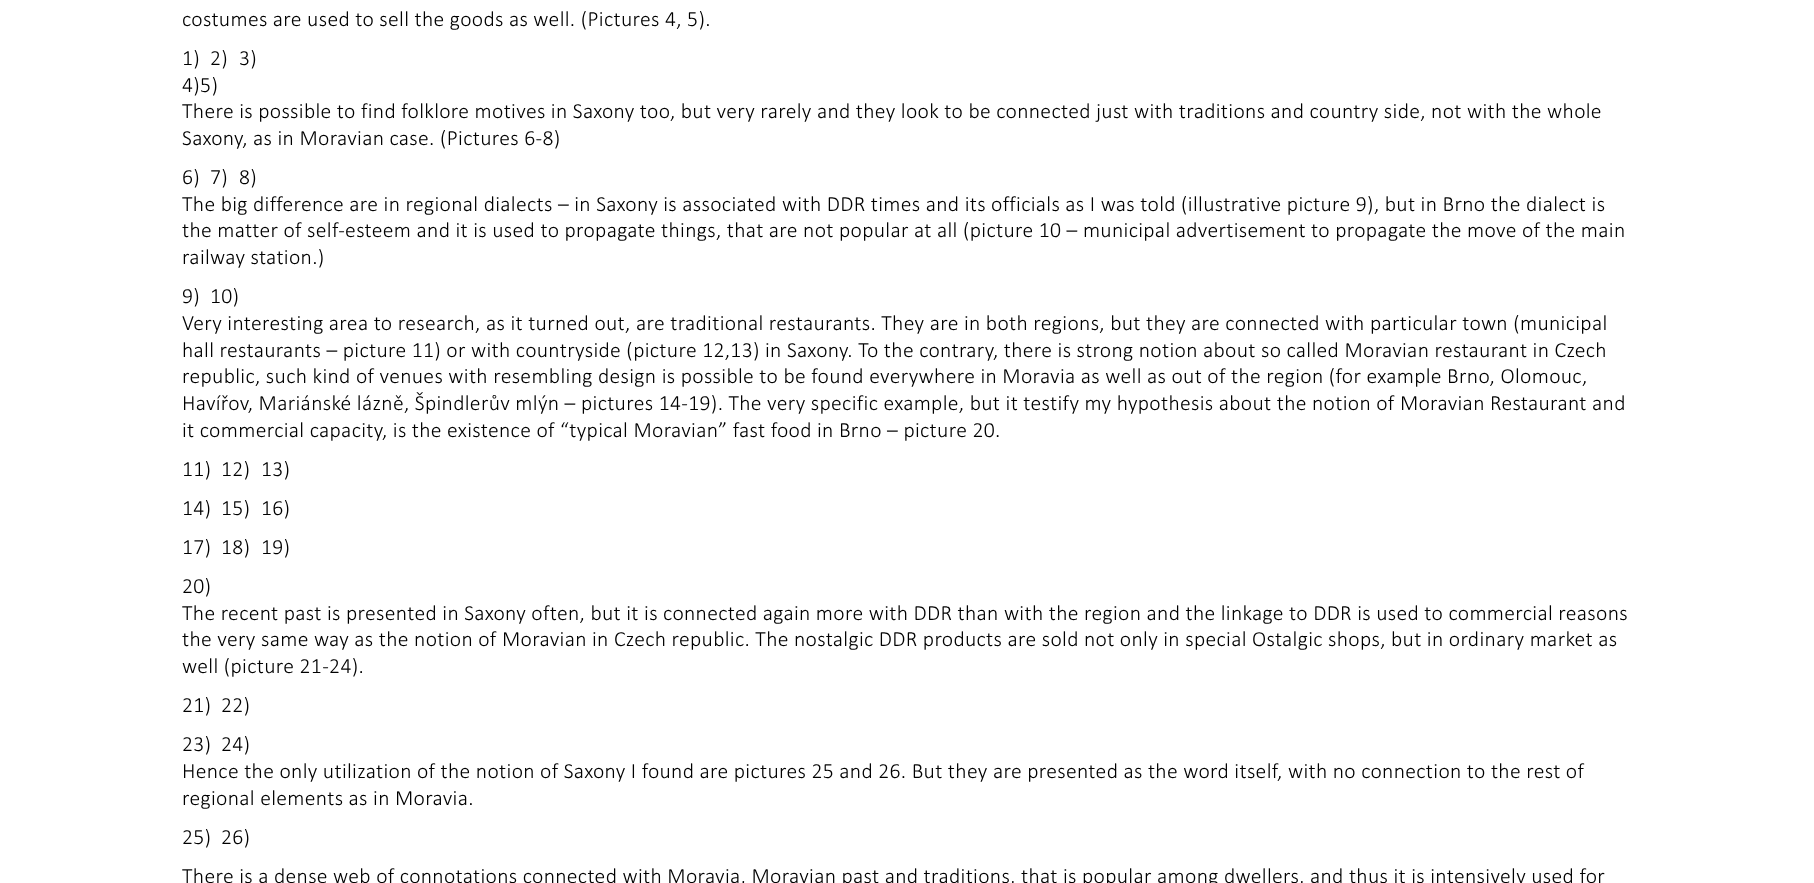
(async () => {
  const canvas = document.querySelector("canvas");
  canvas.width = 1814;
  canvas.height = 883;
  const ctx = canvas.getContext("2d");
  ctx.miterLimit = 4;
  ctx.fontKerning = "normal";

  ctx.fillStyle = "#ffffff";
  ctx.fillRect(0, 0, 1814, 883);
  ctx.letterSpacing = "0.33px";
  ctx.font = "300 21.67px Calibri";
  ctx.fillStyle = "#000000";
  for (const [text, x, y] of [
    ["costumes are used to sell the goods as well. (Pictures 4, 5).", 182, 26],
    ["1)", 182, 65],
    ["2)", 210, 65],
    ["3)", 239, 65],
    ["4)5)", 182, 92],
    ["There is possible to find folklore motives in Saxony too, but very rarely and they look to be connected just with traditions and country side, not with the whole", 182, 118],
    ["Saxony, as in Moravian case. (Pictures 6-8)", 182, 145],
    ["6)", 182, 184],
    ["7)", 210, 184],
    ["8)", 239, 184],
    ["The big difference are in regional dialects – in Saxony is associated with DDR times and its officials as I was told (illustrative picture 9), but in Brno the dialect is", 182, 211],
    ["the matter of self-esteem and it is used to propagate things, that are not popular at all (picture 10 – municipal advertisement to propagate the move of the main", 182, 237],
    ["railway station.)", 182, 264],
    ["9)", 182, 303],
    ["10)", 210, 303],
    ["Very interesting area to research, as it turned out, are traditional restaurants. They are in both regions, but they are connected with particular town (municipal", 182, 330],
    ["hall restaurants – picture 11) or with countryside (picture 12,13) in Saxony. To the contrary, there is strong notion about so called Moravian restaurant in Czech", 182, 357],
    ["republic, such kind of venues with resembling design is possible to be found everywhere in Moravia as well as out of the region (for example Brno, Olomouc,", 182, 383],
    ["Havířov, Mariánské lázně, Špindlerův mlýn – pictures 14-19). The very specific example, but it testify my hypothesis about the notion of Moravian Restaurant and", 182, 410],
    ["it commercial capacity, is the existence of “typical Moravian” fast food in Brno – picture 20.", 182, 437],
    ["11)", 182, 476],
    ["12)", 221, 476],
    ["13)", 261, 476],
    ["14)", 182, 515],
    ["15)", 221, 515],
    ["16)", 261, 515],
    ["17)", 182, 554],
    ["18)", 221, 554],
    ["19)", 261, 554],
    ["20)", 182, 593],
    ["The recent past is presented in Saxony often, but it is connected again more with DDR than with the region and the linkage to DDR is used to commercial reasons", 182, 620],
    ["the very same way as the notion of Moravian in Czech republic. The nostalgic DDR products are sold not only in special Ostalgic shops, but in ordinary market as", 182, 646],
    ["well (picture 21-24).", 182, 673],
    ["21)", 182, 712],
    ["22)", 221, 712],
    ["23)", 182, 751],
    ["24)", 221, 751],
    ["Hence the only utilization of the notion of Saxony I found are pictures 25 and 26. But they are presented as the word itself, with no connection to the rest of", 182, 778],
    ["regional elements as in Moravia.", 182, 805],
    ["25)", 182, 844],
    ["26)", 221, 844],
    ["There is a dense web of connotations connected with Moravia, Moravian past and traditions, that is popular among dwellers, and thus it is intensively used for", 182, 883],
  ]) {
    ctx.fillText(text, x, y);
  }
})();
